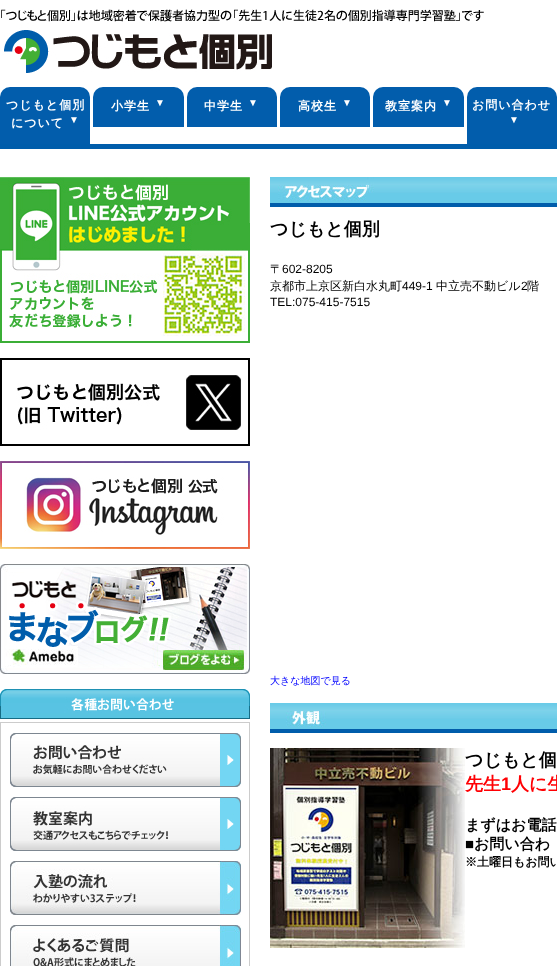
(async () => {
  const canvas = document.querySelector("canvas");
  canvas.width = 557;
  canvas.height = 966;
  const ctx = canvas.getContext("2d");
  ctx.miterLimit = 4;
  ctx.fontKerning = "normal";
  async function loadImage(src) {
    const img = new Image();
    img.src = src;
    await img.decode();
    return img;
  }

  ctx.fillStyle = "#ffffff";
  ctx.fillRect(0, 0, 557, 966);
  ctx.drawImage(await loadImage("img/1.png"), 1, 9, 483, 64);
  ctx.fillStyle = "#005dab";
  ctx.fillRect(0, 144, 557, 5);
  ctx.fillStyle = "#025dac";
  ctx.beginPath();
  ctx.roundRect(0, 87, 90, 57, [10, 10, 0, 0]);
  ctx.fill();
  ctx.beginPath();
  ctx.roundRect(93, 87, 91, 40, [10, 10, 0, 0]);
  ctx.fill();
  ctx.beginPath();
  ctx.roundRect(187, 87, 90, 40, [10, 10, 0, 0]);
  ctx.fill();
  ctx.beginPath();
  ctx.roundRect(280, 87, 90, 40, [10, 10, 0, 0]);
  ctx.fill();
  ctx.beginPath();
  ctx.roundRect(373, 87, 91, 40, [10, 10, 0, 0]);
  ctx.fill();
  ctx.beginPath();
  ctx.roundRect(467, 87, 90, 57, [10, 10, 0, 0]);
  ctx.fill();
  ctx.drawImage(await loadImage("img/2.png"), 0, 177, 250, 166);
  ctx.drawImage(await loadImage("img/3.png"), 0, 358, 250, 88);
  ctx.drawImage(await loadImage("img/4.png"), 0, 461, 250, 88);
  ctx.drawImage(await loadImage("img/5.png"), 0, 564, 250, 110);
  ctx.drawImage(await loadImage("img/6.png"), 0, 689, 250, 30);
  ctx.strokeStyle = "#cccccc";
  ctx.strokeRect(0.5, 722.5, 249, 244);
  ctx.drawImage(await loadImage("img/7.png"), 10, 733, 231, 54);
  ctx.drawImage(await loadImage("img/8.png"), 10, 797, 231, 54);
  ctx.drawImage(await loadImage("img/9.png"), 10, 861, 231, 54);
  ctx.drawImage(await loadImage("img/10.png"), 10, 925, 231, 41);
  ctx.drawImage(await loadImage("img/11.png"), 270, 177, 287, 30);
  ctx.drawImage(await loadImage("img/12.png"), 270, 703, 287, 30);
  ctx.drawImage(await loadImage("img/13.png"), 270, 748, 195, 200);
  ctx.letterSpacing = "1px";
  ctx.font = "bold 12px WenQuanYi Zen Hei";
  ctx.fillStyle = "#ffffff";
  ctx.fillText("つじもと個別", 6, 109);
  ctx.fillText("について", 11, 127);
  ctx.font = "bold 10px Liberation Sans";
  ctx.fillText("▼", 69, 123);
  ctx.font = "bold 12px WenQuanYi Zen Hei";
  ctx.fillText("小学生", 111, 110);
  ctx.font = "bold 10px Liberation Sans";
  ctx.fillText("▼", 155, 106);
  ctx.font = "bold 12px WenQuanYi Zen Hei";
  ctx.fillText("中学生", 204, 110);
  ctx.font = "bold 10px Liberation Sans";
  ctx.fillText("▼", 248, 106);
  ctx.font = "bold 12px WenQuanYi Zen Hei";
  ctx.fillText("高校生", 298, 110);
  ctx.font = "bold 10px Liberation Sans";
  ctx.fillText("▼", 342, 106);
  ctx.font = "bold 12px WenQuanYi Zen Hei";
  ctx.fillText("教室案内", 385, 110);
  ctx.font = "bold 10px Liberation Sans";
  ctx.fillText("▼", 442, 106);
  ctx.font = "bold 12px WenQuanYi Zen Hei";
  ctx.fillText("お問い合わせ", 472, 109);
  ctx.font = "bold 10px Liberation Sans";
  ctx.fillText("▼", 509, 123);
  ctx.letterSpacing = "0px";
  ctx.font = "bold 18px WenQuanYi Zen Hei";
  ctx.fillStyle = "#000000";
  ctx.fillText("つじもと個別", 270, 235);
  ctx.font = "500 12px WenQuanYi Zen Hei";
  ctx.fillText("〒", 270, 273);
  ctx.font = "12px Liberation Sans";
  ctx.fillText("602-8205", 282, 273);
  ctx.font = "500 12px WenQuanYi Zen Hei";
  ctx.fillText("京都市上京区新白水丸町", 270, 290);
  ctx.font = "12px Liberation Sans";
  ctx.fillText("449-1", 402, 290);
  ctx.font = "500 12px WenQuanYi Zen Hei";
  ctx.fillText("中立売不動ビル", 436, 290);
  ctx.font = "12px Liberation Sans";
  ctx.fillText("2", 521, 290);
  ctx.font = "500 12px WenQuanYi Zen Hei";
  ctx.fillText("階", 527, 290);
  ctx.font = "12px Liberation Sans";
  ctx.fillText("TEL:075-415-7515", 270, 306);
  ctx.font = "500 10px WenQuanYi Zen Hei";
  ctx.fillStyle = "#0000ff";
  ctx.fillText("大きな地図で見る", 270, 684);
  ctx.font = "bold 18px WenQuanYi Zen Hei";
  ctx.fillStyle = "#000000";
  ctx.fillText("つじもと個", 465, 766);
  ctx.fillStyle = "#ff0004";
  ctx.fillText("先生", 465, 790);
  ctx.font = "bold 18px Liberation Sans";
  ctx.fillText("1", 501, 790);
  ctx.font = "bold 18px WenQuanYi Zen Hei";
  ctx.fillText("人に生", 511, 790);
  ctx.font = "bold 15px WenQuanYi Zen Hei";
  ctx.fillStyle = "#000000";
  ctx.fillText("まずはお電話", 465, 830);
  ctx.font = "bold 15px Liberation Sans";
  ctx.fillText("■", 465, 849);
  ctx.font = "bold 15px WenQuanYi Zen Hei";
  ctx.fillText("お問い合わ", 474, 849);
  ctx.font = "bold 12px WenQuanYi Zen Hei";
  ctx.fillText("※土曜日もお問い", 465, 866);
})();
